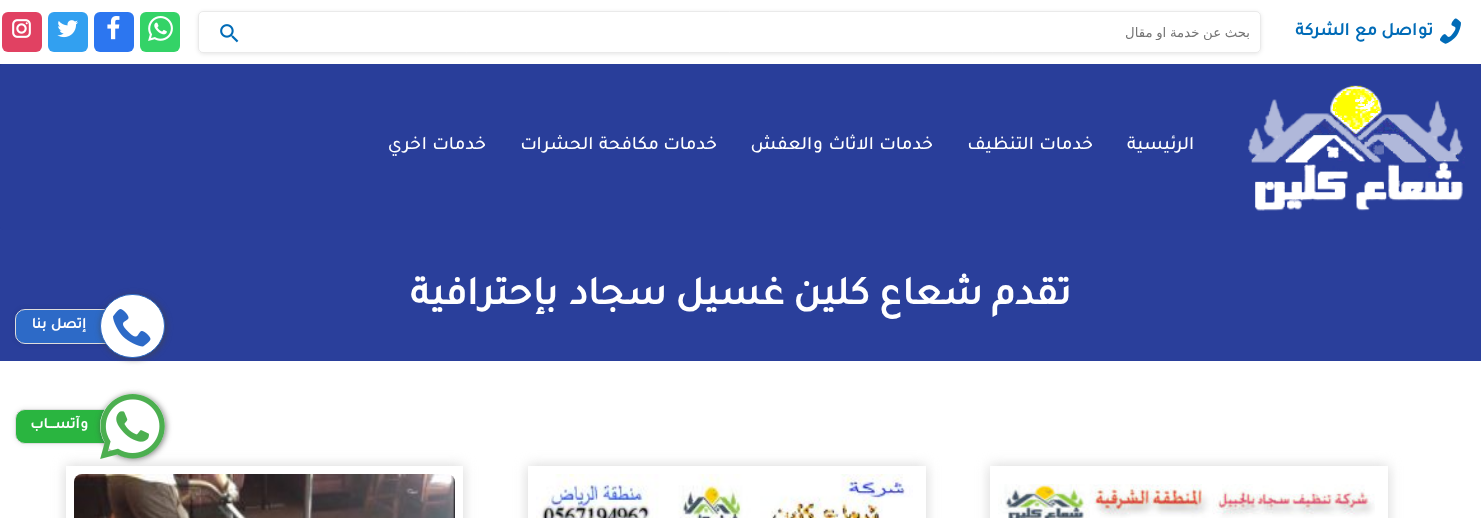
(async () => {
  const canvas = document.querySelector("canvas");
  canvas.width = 1481;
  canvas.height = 518;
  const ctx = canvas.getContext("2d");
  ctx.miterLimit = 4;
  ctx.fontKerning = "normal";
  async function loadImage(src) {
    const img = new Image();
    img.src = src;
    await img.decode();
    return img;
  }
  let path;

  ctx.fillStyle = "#ffffff";
  ctx.fillRect(0, 0, 1481, 518);
  ctx.fillStyle = "#2a3f9b";
  ctx.fillRect(0, 64, 1481, 297);
  ctx.fillStyle = "rgba(0, 0, 0, 0.1)";
  ctx.filter = "blur(5px)";
  ctx.beginPath();
  ctx.rect(-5, -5, 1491, 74);
  ctx.fill();
  ctx.filter = "none";
  ctx.fillStyle = "#ffffff";
  ctx.fillRect(0, 0, 1481, 64);
  ctx.drawImage(await loadImage("img/1.png"), 1440, 18, 21, 26);
  ctx.fillStyle = "rgba(0, 0, 0, 0.1)";
  ctx.filter = "blur(2px)";
  ctx.beginPath();
  ctx.roundRect(198, 12, 1063, 42, 6);
  ctx.fill();
  ctx.filter = "none";
  ctx.fillStyle = "#ffffff";
  ctx.beginPath();
  ctx.roundRect(198, 11, 1063, 42, 5);
  ctx.fill();
  ctx.beginPath();
  ctx.roundRect(198.5, 11.5, 1062, 41, 4.5);
  ctx.strokeStyle = "rgba(215, 215, 215, 0.53)";
  ctx.stroke();
  ctx.drawImage(await loadImage("img/2.png"), 220, 24, 19, 19);
  ctx.fillStyle = "#34d367";
  ctx.beginPath();
  ctx.roundRect(140, 12, 40, 40, 6);
  ctx.fill();
  ctx.drawImage(await loadImage("img/3.png"), 148, 16, 25, 25);
  ctx.fillStyle = "#2c76f0";
  ctx.beginPath();
  ctx.roundRect(94, 12, 40, 40, 6);
  ctx.fill();
  ctx.drawImage(await loadImage("img/4.png"), 107, 16, 13, 24);
  ctx.fillStyle = "#32a0f0";
  ctx.beginPath();
  ctx.roundRect(48, 12, 40, 40, 6);
  ctx.fill();
  ctx.drawImage(await loadImage("img/5.png"), 57, 20, 21, 18);
  ctx.fillStyle = "#e14162";
  ctx.beginPath();
  ctx.roundRect(2, 12, 40, 40, 6);
  ctx.fill();
  ctx.drawImage(await loadImage("img/6.png"), 12, 19, 19, 19);
  ctx.fillStyle = "#293e9a";
  ctx.beginPath();
  ctx.roundRect(0, 64, 1481, 166, 3);
  ctx.fill();
  ctx.drawImage(await loadImage("img/7.png"), 1248, 85, 217, 126);
  ctx.save();
  path = new Path2D("M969 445H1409V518H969ZM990 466H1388V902H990Z");
  ctx.clip(path, "evenodd");
  ctx.fillStyle = "#d4d4d4";
  ctx.filter = "blur(6.5px)";
  ctx.beginPath();
  ctx.rect(990, 466, 398, 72);
  ctx.fill();
  ctx.filter = "none";
  ctx.restore();
  ctx.drawImage(await loadImage("img/8.png"), 998, 484, 377, 34);
  ctx.save();
  path = new Path2D("M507 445H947V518H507ZM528 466H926V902H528Z");
  ctx.clip(path, "evenodd");
  ctx.fillStyle = "#d4d4d4";
  ctx.filter = "blur(6.5px)";
  ctx.beginPath();
  ctx.rect(528, 466, 398, 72);
  ctx.fill();
  ctx.filter = "none";
  ctx.restore();
  ctx.drawImage(await loadImage("img/9.png"), 536, 474, 377, 44);
  ctx.save();
  path = new Path2D("M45 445H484V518H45ZM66 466H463V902H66Z");
  ctx.clip(path, "evenodd");
  ctx.fillStyle = "#d4d4d4";
  ctx.filter = "blur(6.5px)";
  ctx.beginPath();
  ctx.rect(66, 466, 397, 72);
  ctx.fill();
  ctx.filter = "none";
  ctx.restore();
  ctx.drawImage(await loadImage("img/10.png"), 74, 474, 381, 44);
  ctx.fillStyle = "rgba(0, 0, 0, 0.1)";
  ctx.filter = "blur(2.5px)";
  ctx.beginPath();
  ctx.roundRect(15, 309, 100, 35, 10);
  ctx.fill();
  ctx.filter = "none";
  ctx.fillStyle = "#2d6ac7";
  ctx.beginPath();
  ctx.roundRect(15.5, 309.5, 99, 34, 9.5);
  ctx.fill();
  ctx.strokeStyle = "#dddddd";
  ctx.stroke();
  ctx.fillStyle = "rgba(68, 68, 68, 0.71)";
  ctx.filter = "blur(3px)";
  ctx.beginPath();
  ctx.roundRect(101, 295, 65, 64, 32);
  ctx.fill();
  ctx.filter = "none";
  ctx.fillStyle = "#ffffff";
  ctx.beginPath();
  ctx.roundRect(100.5, 294.5, 64, 63, 31.5);
  ctx.fill();
  ctx.strokeStyle = "#2d6ac7";
  ctx.stroke();
  ctx.drawImage(await loadImage("img/11.png"), 113, 309, 38, 38);
  ctx.fillStyle = "rgba(0, 0, 0, 0.1)";
  ctx.filter = "blur(2.5px)";
  ctx.beginPath();
  ctx.roundRect(15, 409, 100, 35, 10);
  ctx.fill();
  ctx.filter = "none";
  ctx.fillStyle = "#2ab540";
  ctx.beginPath();
  ctx.roundRect(15.5, 409.5, 99, 34, 9.5);
  ctx.fill();
  ctx.strokeStyle = "#dddddd";
  ctx.stroke();
  ctx.fillStyle = "rgba(68, 68, 68, 0.71)";
  ctx.filter = "blur(3px)";
  ctx.beginPath();
  ctx.roundRect(101, 395, 65, 64, 32);
  ctx.fill();
  ctx.filter = "none";
  ctx.fillStyle = "#ffffff";
  ctx.beginPath();
  ctx.roundRect(100, 394, 65, 64, 32);
  ctx.fill();
  ctx.drawImage(await loadImage("img/12.png"), 100, 394, 65, 65);
  ctx.direction = "rtl";
  ctx.font = "bold 18px Tajawal";
  ctx.fillStyle = "#006bb7";
  ctx.fillText("تواصل مع الشركة", 1433, 35);
  ctx.save();
  ctx.beginPath();
  ctx.rect(282, 25, 968, 15);
  ctx.clip();
  ctx.wordSpacing = "-0.5px";
  ctx.font = "13.25px DejaVu Sans";
  ctx.fillStyle = "#757575";
  ctx.fillText("بحث عن خدمة او مقال", 1250, 37);
  ctx.restore();
  ctx.font = "500 19px Tajawal";
  ctx.fillStyle = "#ffffff";
  for (const [text, x, y] of [
    ["الرئيسية", 1194, 149],
    ["خدمات التنظيف", 1093, 149],
    ["خدمات الاثاث والعفش", 933, 149],
    ["خدمات مكافحة الحشرات", 717, 149],
    ["خدمات اخري", 486, 149],
  ]) {
    ctx.fillText(text, x, y);
  }
  ctx.font = "bold 40px Tajawal";
  ctx.fillText("تقدم شعاع كلين", 1071, 304);
  ctx.fillText("غسيل سجاد بإحترافية", 784, 304);
  ctx.font = "bold 15px Tajawal";
  ctx.fillText("إتصل بنا", 86, 328);
  ctx.fillText("وآتســــاب", 88, 428);
})();
